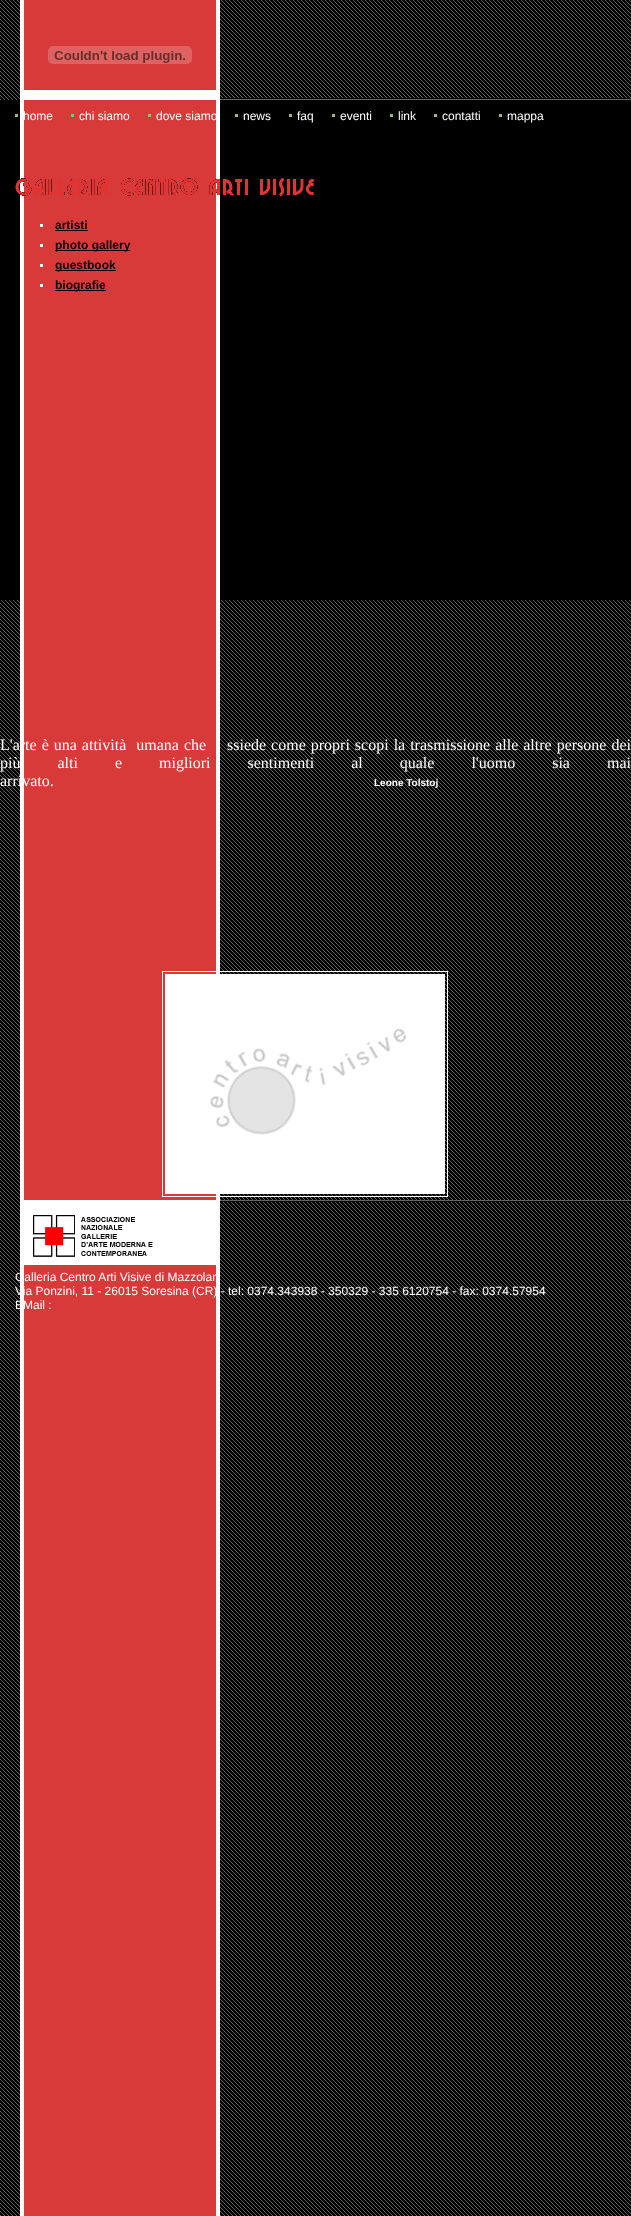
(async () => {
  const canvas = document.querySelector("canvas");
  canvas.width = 631;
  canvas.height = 2216;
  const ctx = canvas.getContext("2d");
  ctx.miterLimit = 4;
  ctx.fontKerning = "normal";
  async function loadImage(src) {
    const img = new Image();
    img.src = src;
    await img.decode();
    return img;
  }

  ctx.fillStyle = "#ffffff";
  ctx.fillRect(0, 0, 631, 2216);
  ctx.drawImage(await loadImage("img/1.png"), 0, 0, 631, 2216);
  ctx.drawImage(await loadImage("img/2.png"), 220, 98, 411, 2);
  ctx.fillRect(24, 90, 192, 10);
  ctx.drawImage(await loadImage("img/3.png"), 48, 46, 144, 18);
  ctx.fillStyle = "#000000";
  ctx.fillRect(0, 100, 631, 500);
  ctx.fillStyle = "#90bd84";
  ctx.fillRect(15, 114, 3, 3);
  ctx.drawImage(await loadImage("img/5.png"), 20, 100, 200, 500);
  for (const [x, y, w, h, color] of [
    [71, 114, 3, 3, "#90bd84"],
    [148, 114, 3, 3, "#90bd84"],
    [235, 114, 3, 3, "#90bd84"],
    [289, 114, 3, 3, "#90bd84"],
    [332, 114, 3, 3, "#90bd84"],
    [390, 114, 3, 3, "#90bd84"],
    [434, 114, 3, 3, "#90bd84"],
    [499, 114, 3, 3, "#90bd84"],
  ]) {
    ctx.fillStyle = color;
    ctx.fillRect(x, y, w, h);
  }
  ctx.drawImage(await loadImage("img/4.png"), 15, 178, 299, 19);
  for (const [x, y, w, h, color] of [
    [40, 224, 3, 3, "#ffffff"],
    [55, 230, 33, 1, "#000000"],
    [40, 244, 3, 3, "#ffffff"],
    [55, 250, 75, 1, "#000000"],
    [40, 264, 3, 3, "#ffffff"],
    [55, 270, 61, 1, "#000000"],
    [40, 284, 3, 3, "#ffffff"],
    [55, 290, 51, 1, "#000000"],
  ]) {
    ctx.fillStyle = color;
    ctx.fillRect(x, y, w, h);
  }
  ctx.strokeStyle = "#ffffff";
  ctx.strokeRect(162.5, 971.5, 285, 225);
  ctx.drawImage(await loadImage("img/6.png"), 165, 974, 280, 220);
  ctx.drawImage(await loadImage("img/7.png"), 220, 1200, 411, 2);
  ctx.fillStyle = "#ffffff";
  ctx.fillRect(24, 1200, 192, 10);
  ctx.drawImage(await loadImage("img/8.png"), 24, 1210, 192, 55);
  ctx.font = "12px Liberation Sans";
  for (const [text, x, y] of [
    ["home", 23, 120],
    ["chi siamo", 79, 120],
    ["dove siamo", 156, 120],
    ["news", 243, 120],
    ["faq", 297, 120],
    ["eventi", 340, 120],
    ["link", 398, 120],
    ["contatti", 442, 120],
    ["mappa", 507, 120],
  ]) {
    ctx.fillText(text, x, y);
  }
  ctx.font = "bold 12px Liberation Sans";
  ctx.fillStyle = "#000000";
  for (const [text, x, y] of [
    ["artisti", 55, 229],
    ["photo gallery", 55, 249],
    ["guestbook", 55, 269],
    ["biografie", 55, 289],
  ]) {
    ctx.fillText(text, x, y);
  }
  ctx.wordSpacing = "1px";
  ctx.font = "16px Liberation Serif";
  ctx.fillStyle = "#ffffff";
  ctx.fillText("L'arte è una attività  umana che", 0, 750);
  ctx.fillText("ssiede come propri scopi la trasmissione alle altre persone dei", 227, 750);
  ctx.wordSpacing = "33px";
  ctx.fillText("più alti e migliori sentimenti al quale l'uomo sia mai", 0, 768);
  ctx.wordSpacing = "0px";
  ctx.fillText("arrivato.", 0, 786);
  ctx.font = "bold 10px Liberation Sans";
  ctx.fillText("Leone Tolstoj", 374, 786);
  ctx.font = "12px Liberation Sans";
  for (const [text, x, y] of [
    ["Galleria Centro Arti Visive di Mazzolar", 15, 1281],
    ["Via Ponzini, 11 - 26015 Soresina (CR) - tel: 0374.343938 - 350329 - 335 6120754 - fax: 0374.57954", 15, 1295],
    ["EMail :", 15, 1309],
  ]) {
    ctx.fillText(text, x, y);
  }
})();
